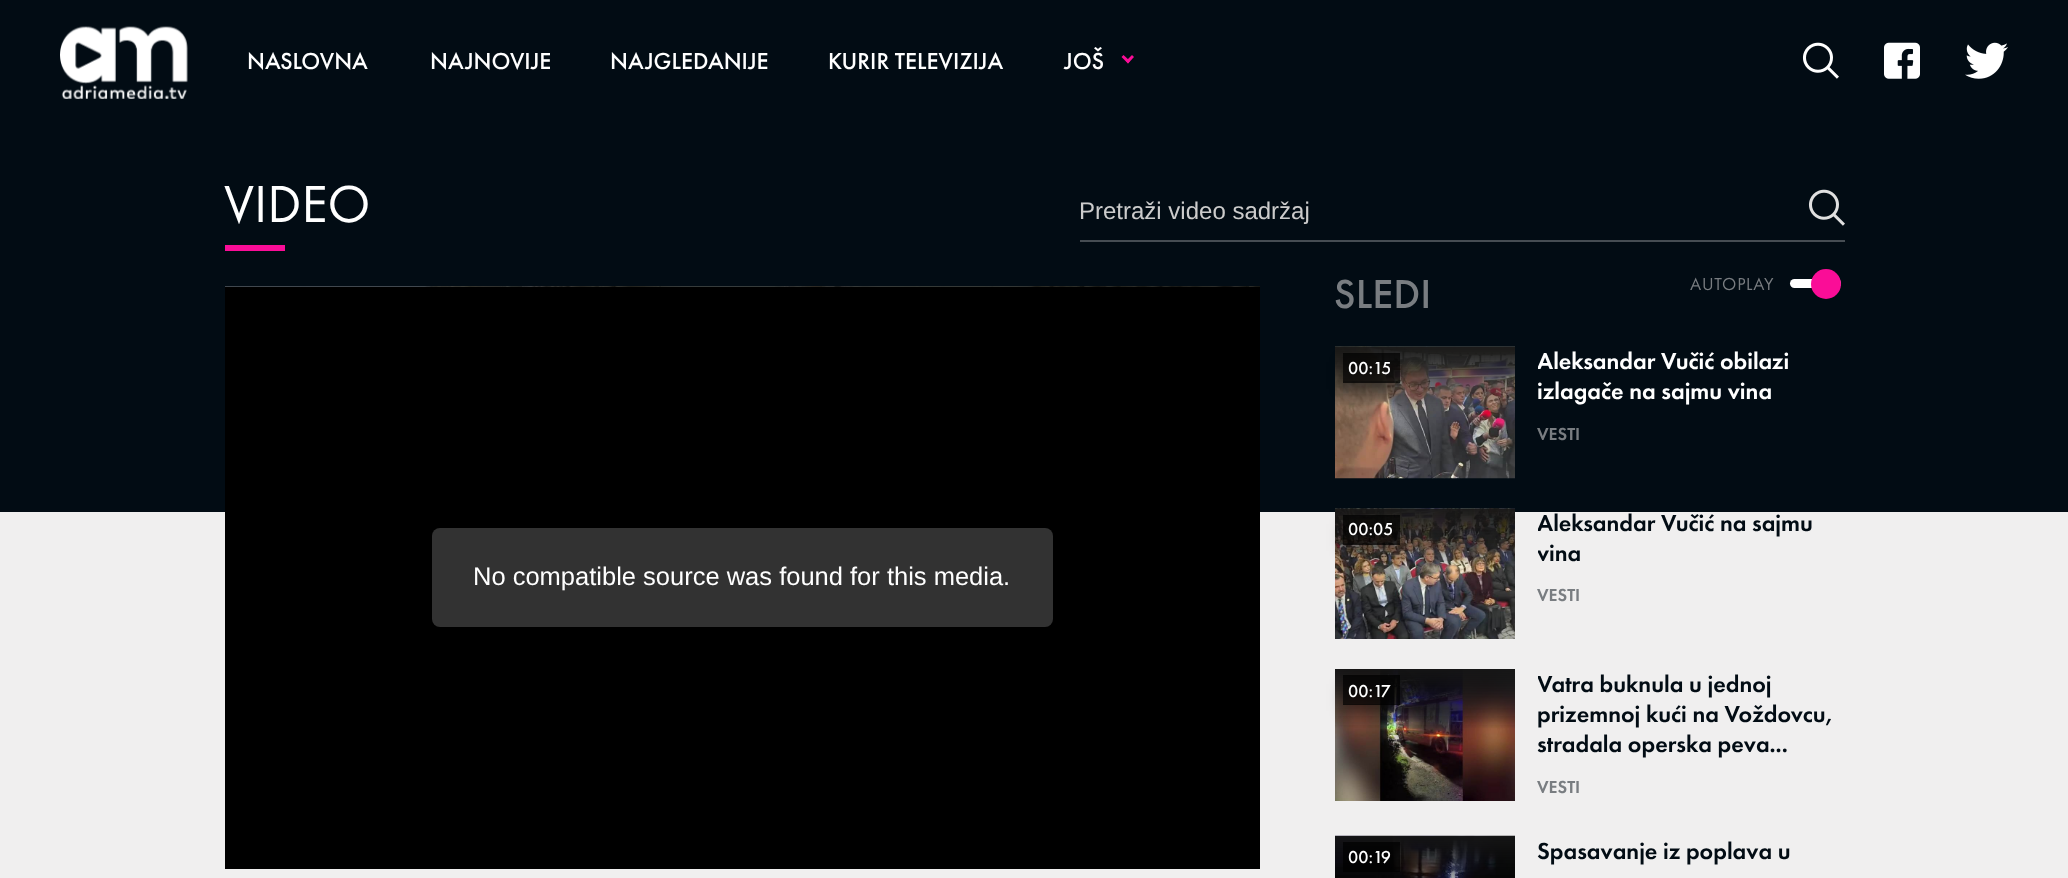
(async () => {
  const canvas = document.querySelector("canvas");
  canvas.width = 2068;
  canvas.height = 878;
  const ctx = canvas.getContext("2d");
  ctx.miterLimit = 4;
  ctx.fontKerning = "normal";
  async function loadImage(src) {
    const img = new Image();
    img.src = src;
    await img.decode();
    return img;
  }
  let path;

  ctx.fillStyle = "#f0efef";
  ctx.fillRect(0, 0, 2068, 878);
  ctx.fillStyle = "#020c14";
  ctx.fillRect(0, 0, 2068, 512);
  ctx.drawImage(await loadImage("img/1.png"), 60, 26, 128, 73);
  ctx.fillStyle = "#fa0d97";
  path = new Path2D("M1132 55L1134 57L1128 63.5L1126 61Z");
  ctx.fill(path);
  path = new Path2D("M1123.5 55L1130 61L1128 63.5L1121.5 57Z");
  ctx.fill(path);
  ctx.drawImage(await loadImage("img/2.png"), 1802, 42, 37, 37);
  ctx.drawImage(await loadImage("img/3.png"), 1884, 42, 36, 37);
  ctx.drawImage(await loadImage("img/4.png"), 1965, 42, 43, 37);
  ctx.fillRect(225, 245, 60, 6);
  ctx.fillStyle = "#464d53";
  ctx.fillRect(1080, 240, 765, 2);
  ctx.drawImage(await loadImage("img/5.png"), 1808, 189, 37, 37);
  ctx.drawImage(await loadImage("img/6.png"), 225, 286, 1035, 1);
  ctx.fillStyle = "#000000";
  ctx.fillRect(225, 287, 1035, 582);
  ctx.fillStyle = "#323232";
  ctx.beginPath();
  ctx.roundRect(432, 528, 621, 99, 8);
  ctx.fill();
  ctx.fillStyle = "#ffffff";
  ctx.beginPath();
  ctx.roundRect(1790, 279, 51, 9, 4.5);
  ctx.fill();
  ctx.fillStyle = "#fa0d97";
  ctx.beginPath();
  ctx.arc(1826, 284, 15, 0, Math.PI * 2);
  ctx.fill();
  ctx.drawImage(await loadImage("img/7.png"), 1335, 346, 180, 133);
  ctx.save();
  path = new Path2D("M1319 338H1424V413H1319ZM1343 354H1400V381H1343Z");
  ctx.clip(path, "evenodd");
  ctx.fillStyle = "rgba(0, 0, 0, 0.3)";
  ctx.filter = "blur(7.5px)";
  ctx.beginPath();
  ctx.rect(1343, 362, 57, 27);
  ctx.fill();
  ctx.filter = "none";
  ctx.restore();
  ctx.fillStyle = "rgba(0, 0, 0, 0.7)";
  ctx.fillRect(1343, 353, 57, 30);
  ctx.drawImage(await loadImage("img/8.png"), 1335, 508, 180, 131);
  ctx.save();
  path = new Path2D("M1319 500H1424V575H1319ZM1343 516H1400V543H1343Z");
  ctx.clip(path, "evenodd");
  ctx.fillStyle = "rgba(0, 0, 0, 0.3)";
  ctx.filter = "blur(7.5px)";
  ctx.beginPath();
  ctx.rect(1343, 524, 57, 27);
  ctx.fill();
  ctx.filter = "none";
  ctx.restore();
  ctx.fillRect(1343, 515, 57, 30);
  ctx.drawImage(await loadImage("img/9.png"), 1335, 669, 180, 132);
  ctx.save();
  path = new Path2D("M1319 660H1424V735H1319ZM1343 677H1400V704H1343Z");
  ctx.clip(path, "evenodd");
  ctx.fillStyle = "rgba(0, 0, 0, 0.3)";
  ctx.filter = "blur(7.5px)";
  ctx.beginPath();
  ctx.rect(1343, 684, 57, 27);
  ctx.fill();
  ctx.filter = "none";
  ctx.restore();
  ctx.fillRect(1343, 675, 57, 30);
  ctx.drawImage(await loadImage("img/10.png"), 1335, 835, 180, 43);
  ctx.fillRect(1343, 842, 57, 30);
  ctx.font = "500 24px Futura PT";
  ctx.fillStyle = "#ffffff";
  for (const [text, x, y] of [
    ["NASLOVNA", 247, 69],
    ["NAJNOVIJE", 430, 69],
    ["NAJGLEDANIJE", 610, 69],
    ["KURIR TELEVIZIJA", 828, 69],
    ["JOŠ", 1064, 69],
  ]) {
    ctx.fillText(text, x, y);
  }
  ctx.font = "54px Futura PT";
  ctx.fillText("VIDEO", 224, 222);
  ctx.font = "24px Liberation Sans";
  ctx.fillStyle = "#cccccc";
  ctx.fillText("Pretraži video sadržaj", 1079, 219);
  ctx.font = "25.5px Liberation Sans";
  ctx.fillStyle = "#ffffff";
  ctx.fillText("No compatible source was found for this media.", 473, 585);
  ctx.font = "500 42px Futura PT";
  ctx.fillStyle = "#797d81";
  ctx.fillText("SLEDI", 1334, 308);
  ctx.letterSpacing = "0.75px";
  ctx.font = "18px Futura PT";
  ctx.fillText("AUTOPLAY", 1690, 290);
  ctx.letterSpacing = "0px";
  ctx.font = "500 18px Futura PT";
  ctx.fillStyle = "#ffffff";
  ctx.fillText("00:15", 1348, 374);
  ctx.save();
  ctx.beginPath();
  ctx.rect(1538, 347, 307, 75);
  ctx.clip();
  ctx.font = "500 24px 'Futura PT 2'";
  ctx.fillText("Aleksandar Vučić obilazi", 1537, 369);
  ctx.restore();
  ctx.font = "500 24px 'Futura PT 2'";
  ctx.fillText("izlagače na sajmu vina", 1537, 399);
  ctx.font = "500 18px 'Futura PT 2'";
  ctx.fillStyle = "#797d81";
  ctx.fillText("VESTI", 1537, 440);
  ctx.font = "500 18px Futura PT";
  ctx.fillStyle = "#ffffff";
  ctx.fillText("00:05", 1348, 535);
  ctx.save();
  ctx.beginPath();
  ctx.rect(1538, 509, 307, 75);
  ctx.clip();
  ctx.font = "500 24px 'Futura PT 2'";
  ctx.fillStyle = "#020c14";
  ctx.fillText("Aleksandar Vučić na sajmu", 1537, 531);
  ctx.fillText("vina", 1537, 561);
  ctx.restore();
  ctx.font = "500 18px 'Futura PT 2'";
  ctx.fillStyle = "#797d81";
  ctx.fillText("VESTI", 1537, 601);
  ctx.font = "500 18px Futura PT";
  ctx.fillStyle = "#ffffff";
  ctx.fillText("00:17", 1348, 697);
  ctx.save();
  ctx.beginPath();
  ctx.rect(1538, 669, 307, 105);
  ctx.clip();
  ctx.font = "500 24px 'Futura PT 2'";
  ctx.fillStyle = "#020c14";
  ctx.fillText("Vatra buknula u jednoj", 1537, 692);
  ctx.restore();
  ctx.font = "500 24px 'Futura PT 2'";
  ctx.fillStyle = "#020c14";
  ctx.fillText("prizemnoj kući na Voždovcu,", 1537, 722);
  ctx.fillText("stradala operska peva...", 1537, 752);
  ctx.font = "500 18px 'Futura PT 2'";
  ctx.fillStyle = "#797d81";
  ctx.fillText("VESTI", 1537, 793);
  ctx.font = "500 18px Futura PT";
  ctx.fillStyle = "#ffffff";
  ctx.fillText("00:19", 1348, 863);
  ctx.font = "500 24px 'Futura PT 2'";
  ctx.fillStyle = "#020c14";
  ctx.fillText("Spasavanje iz poplava u", 1537, 859);
})();
